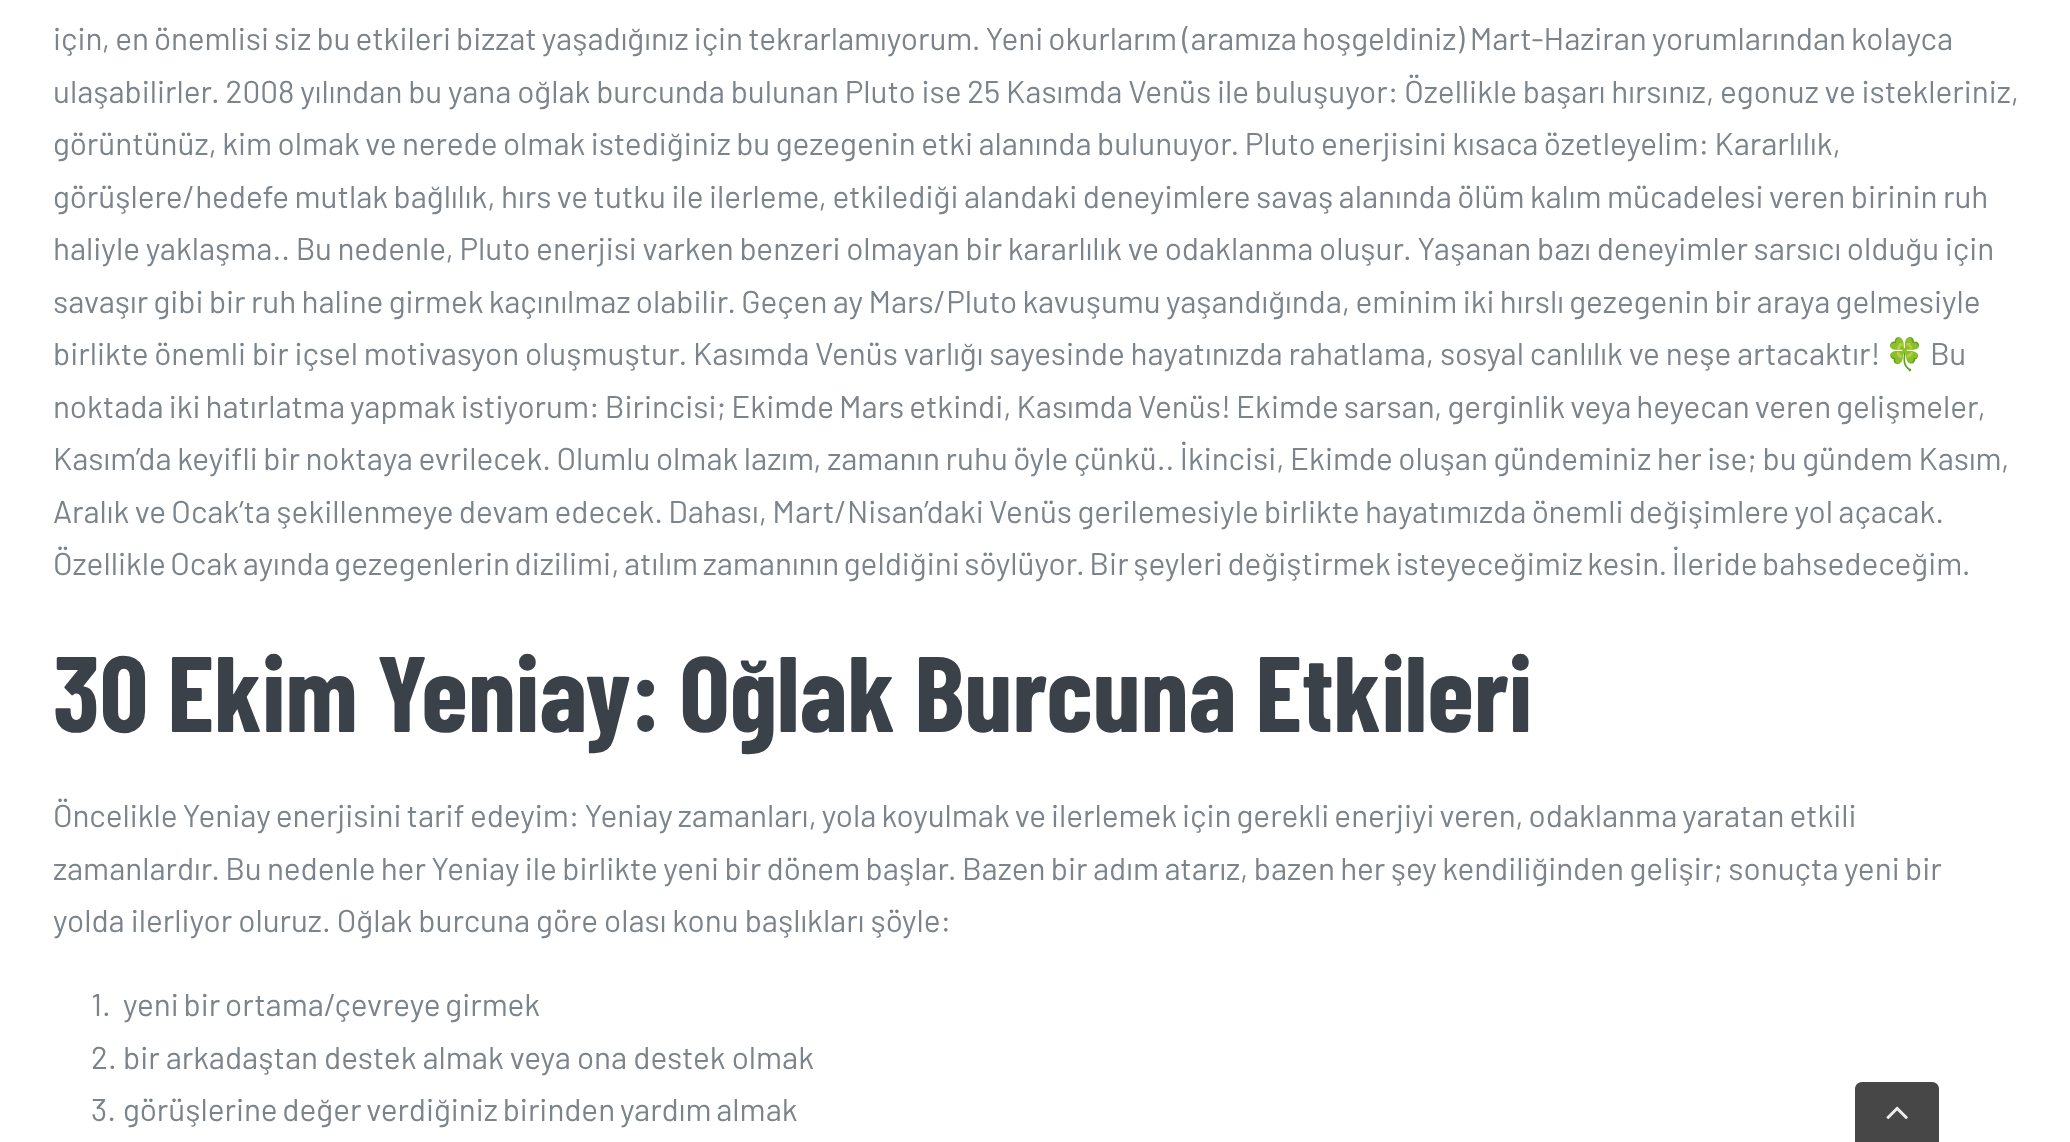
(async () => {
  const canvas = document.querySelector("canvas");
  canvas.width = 2070;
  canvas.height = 1142;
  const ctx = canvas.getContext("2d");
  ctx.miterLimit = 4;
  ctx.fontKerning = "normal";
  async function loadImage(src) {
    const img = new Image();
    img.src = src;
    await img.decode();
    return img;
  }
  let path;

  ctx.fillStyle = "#ffffff";
  ctx.fillRect(0, 0, 2070, 1142);
  ctx.fillStyle = "#474747";
  path = new Path2D("M1862 1082H1932C1936 1082 1939 1085 1939 1089V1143H1855V1089C1855 1085 1858 1082 1862 1082Z");
  ctx.fill(path);
  ctx.drawImage(await loadImage("img/1.png"), 1886, 1106, 22, 14);
  ctx.wordSpacing = "-1.2px";
  ctx.font = "31.5px Barlow";
  ctx.fillStyle = "#7b838b";
  ctx.fillText("için, en önemlisi siz bu etkileri bizzat yaşadığınız için tekrarlamıyorum. Yeni okurlarım (aramıza hoşgeldiniz) Mart-Haziran yorumlarından kolayca", 53, 50);
  ctx.wordSpacing = "-0.5px";
  ctx.fillText("ulaşabilirler. 2008 yılından bu yana oğlak burcunda bulunan Pluto ise 25 Kasımda Venüs ile buluşuyor: Özellikle başarı hırsınız, egonuz ve istekleriniz,", 53, 103);
  ctx.wordSpacing = "-0.9px";
  ctx.fillText("görüntünüz, kim olmak ve nerede olmak istediğiniz bu gezegenin etki alanında bulunuyor. Pluto enerjisini kısaca özetleyelim: Kararlılık,", 53, 155);
  ctx.wordSpacing = "-0.8px";
  ctx.fillText("görüşlere/hedefe mutlak bağlılık, hırs ve tutku ile ilerleme, etkilediği alandaki deneyimlere savaş alanında ölüm kalım mücadelesi veren birinin ruh", 53, 208);
  ctx.wordSpacing = "-0.6px";
  ctx.fillText("haliyle yaklaşma.. Bu nedenle, Pluto enerjisi varken benzeri olmayan bir kararlılık ve odaklanma oluşur. Yaşanan bazı deneyimler sarsıcı olduğu için", 53, 260);
  ctx.wordSpacing = "-1px";
  ctx.fillText("savaşır gibi bir ruh haline girmek kaçınılmaz olabilir. Geçen ay Mars/Pluto kavuşumu yaşandığında, eminim iki hırslı gezegenin bir araya gelmesiyle", 53, 313);
  ctx.wordSpacing = "-0.5px";
  ctx.fillText("birlikte önemli bir içsel motivasyon oluşmuştur. Kasımda Venüs varlığı sayesinde hayatınızda rahatlama, sosyal canlılık ve neşe artacaktır!", 53, 365);
  ctx.wordSpacing = "0px";
  ctx.font = "31.5px Noto Color Emoji";
  ctx.fillText("🍀", 1885, 365);
  ctx.font = "31.5px Barlow";
  ctx.fillText("Bu", 1930, 365);
  ctx.wordSpacing = "-1.2px";
  ctx.fillText("noktada iki hatırlatma yapmak istiyorum: Birincisi; Ekimde Mars etkindi, Kasımda Venüs! Ekimde sarsan, gerginlik veya heyecan veren gelişmeler,", 53, 418);
  ctx.wordSpacing = "-0.75px";
  ctx.fillText("Kasım’da keyifli bir noktaya evrilecek. Olumlu olmak lazım, zamanın ruhu öyle çünkü.. İkincisi, Ekimde oluşan gündeminiz her ise; bu gündem Kasım,", 53, 470);
  ctx.wordSpacing = "-0.9px";
  ctx.fillText("Aralık ve Ocak’ta şekillenmeye devam edecek. Dahası, Mart/Nisan’daki Venüs gerilemesiyle birlikte hayatımızda önemli değişimlere yol açacak.", 53, 523);
  ctx.wordSpacing = "-1.75px";
  ctx.fillText("Özellikle Ocak ayında gezegenlerin dizilimi, atılım zamanının geldiğini söylüyor. Bir şeyleri değiştirmek isteyeceğimiz kesin. İleride bahsedeceğim.", 53, 575);
  ctx.wordSpacing = "-2.5px";
  ctx.font = "bold 107.1px Barlow Condensed";
  ctx.fillStyle = "#3a4149";
  ctx.fillText("30 Ekim Yeniay: Oğlak Burcuna Etkileri", 53, 732);
  ctx.wordSpacing = "-1.25px";
  ctx.font = "31.5px Barlow";
  ctx.fillStyle = "#7b838b";
  ctx.fillText("Öncelikle Yeniay enerjisini tarif edeyim: Yeniay zamanları, yola koyulmak ve ilerlemek için gerekli enerjiyi veren, odaklanma yaratan etkili", 53, 827);
  ctx.wordSpacing = "-0.9px";
  ctx.fillText("zamanlardır. Bu nedenle her Yeniay ile birlikte yeni bir dönem başlar. Bazen bir adım atarız, bazen her şey kendiliğinden gelişir; sonuçta yeni bir", 53, 880);
  ctx.wordSpacing = "-0.25px";
  ctx.fillText("yolda ilerliyor oluruz. Oğlak burcuna göre olası konu başlıkları şöyle:", 53, 932);
  ctx.wordSpacing = "0px";
  ctx.fillText("1.", 91, 1016);
  ctx.wordSpacing = "-1.5px";
  ctx.fillText("yeni bir ortama/çevreye girmek", 123, 1016);
  ctx.wordSpacing = "0px";
  ctx.fillText("2.", 91, 1069);
  ctx.wordSpacing = "-0.25px";
  ctx.fillText("bir arkadaştan destek almak veya ona destek olmak", 123, 1069);
  ctx.wordSpacing = "0px";
  ctx.fillText("3.", 91, 1121);
  ctx.wordSpacing = "-1.5px";
  ctx.fillText("görüşlerine değer verdiğiniz birinden yardım almak", 123, 1121);
})();
